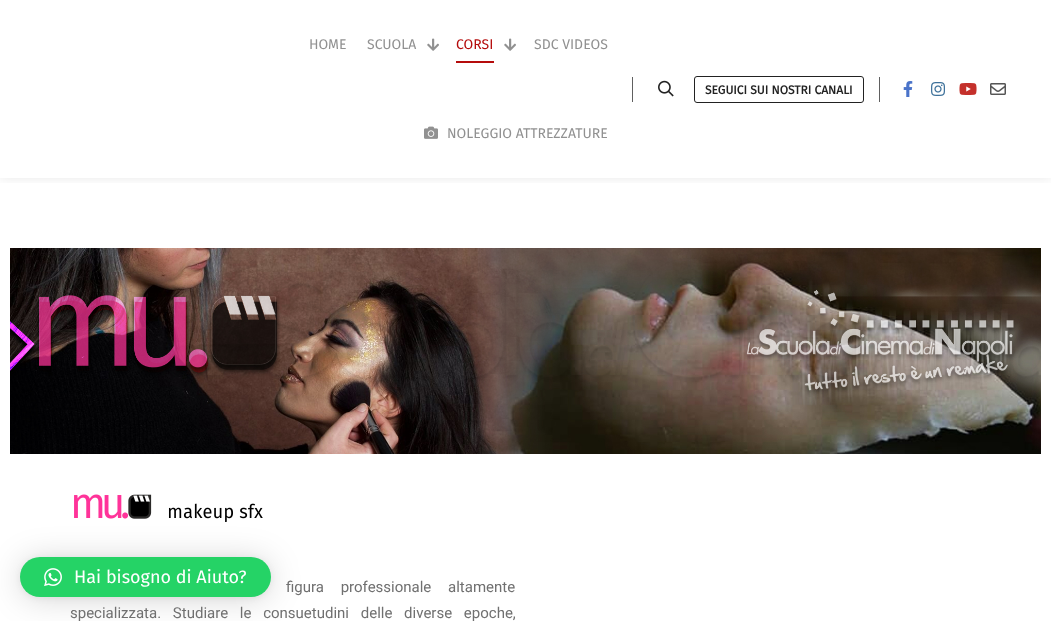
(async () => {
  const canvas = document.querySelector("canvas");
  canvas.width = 1051;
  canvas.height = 621;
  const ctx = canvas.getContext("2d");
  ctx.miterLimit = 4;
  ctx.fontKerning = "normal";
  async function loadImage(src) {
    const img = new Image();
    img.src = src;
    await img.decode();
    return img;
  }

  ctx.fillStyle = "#ffffff";
  ctx.fillRect(0, 0, 1051, 621);
  ctx.save();
  ctx.beginPath();
  ctx.rect(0, 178, 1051, 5);
  ctx.clip();
  ctx.fillStyle = "rgba(0, 0, 0, 0.09)";
  ctx.filter = "blur(6px)";
  ctx.beginPath();
  ctx.rect(0, 0, 1051, 178);
  ctx.fill();
  ctx.filter = "none";
  ctx.restore();
  ctx.drawImage(await loadImage("img/1.png"), 427, 38, 12, 13);
  ctx.fillStyle = "#b50c0c";
  ctx.fillRect(456, 61, 38, 2);
  ctx.drawImage(await loadImage("img/1.png"), 504, 38, 12, 13);
  ctx.drawImage(await loadImage("img/2.png"), 424, 126, 14, 13);
  ctx.fillStyle = "#606060";
  ctx.fillRect(632, 77, 1, 25);
  ctx.drawImage(await loadImage("img/3.png"), 658, 80, 16, 17);
  ctx.beginPath();
  ctx.roundRect(694.5, 76.5, 169, 26, 2.5);
  ctx.strokeStyle = "#222222";
  ctx.stroke();
  ctx.fillRect(879, 77, 1, 25);
  ctx.drawImage(await loadImage("img/4.png"), 903, 81, 10, 16);
  ctx.drawImage(await loadImage("img/5.png"), 931, 82, 14, 14);
  ctx.drawImage(await loadImage("img/6.png"), 959, 83, 18, 12);
  ctx.drawImage(await loadImage("img/7.png"), 990, 83, 16, 12);
  ctx.drawImage(await loadImage("img/8.png"), 10, 248, 1031, 206);
  ctx.drawImage(await loadImage("img/9.png"), 74, 494, 189, 28);
  ctx.fillStyle = "rgba(0, 0, 0, 0.16)";
  ctx.filter = "blur(16px)";
  ctx.beginPath();
  ctx.roundRect(20, 559, 251, 40, 20);
  ctx.fill();
  ctx.filter = "none";
  ctx.fillStyle = "rgba(0, 0, 0, 0.06)";
  ctx.filter = "blur(3px)";
  ctx.beginPath();
  ctx.roundRect(20, 558, 251, 40, 20);
  ctx.fill();
  ctx.filter = "none";
  ctx.fillStyle = "#25d366";
  ctx.beginPath();
  ctx.roundRect(20, 557, 251, 40, 20);
  ctx.fill();
  ctx.drawImage(await loadImage("img/10.png"), 44, 568, 18, 19);
  ctx.font = "14px Fira Sans";
  ctx.fillStyle = "#919191";
  ctx.fillText("HOME", 309, 49);
  ctx.fillText("SCUOLA", 367, 49);
  ctx.fillStyle = "#b50c0c";
  ctx.fillText("CORSI", 456, 49);
  ctx.fillStyle = "#919191";
  ctx.fillText("SDC VIDEOS", 534, 49);
  ctx.fillText("NOLEGGIO ATTREZZATURE", 447, 138);
  ctx.font = "bold 12px Fira Sans";
  ctx.fillStyle = "#222222";
  ctx.fillText("SEGUICI SUI NOSTRI CANALI", 705, 94);
  ctx.wordSpacing = "13px";
  ctx.font = "15px Roboto";
  ctx.fillStyle = "#707070";
  ctx.fillText("figura professionale altamente", 286, 592);
  ctx.wordSpacing = "8px";
  ctx.fillText("specializzata. Studiare le consuetudini delle diverse epoche,", 70, 618);
  ctx.wordSpacing = "0px";
  ctx.font = "18px Fira Sans";
  ctx.fillStyle = "#ffffff";
  ctx.fillText("Hai bisogno di Aiuto?", 74, 583);
})();
